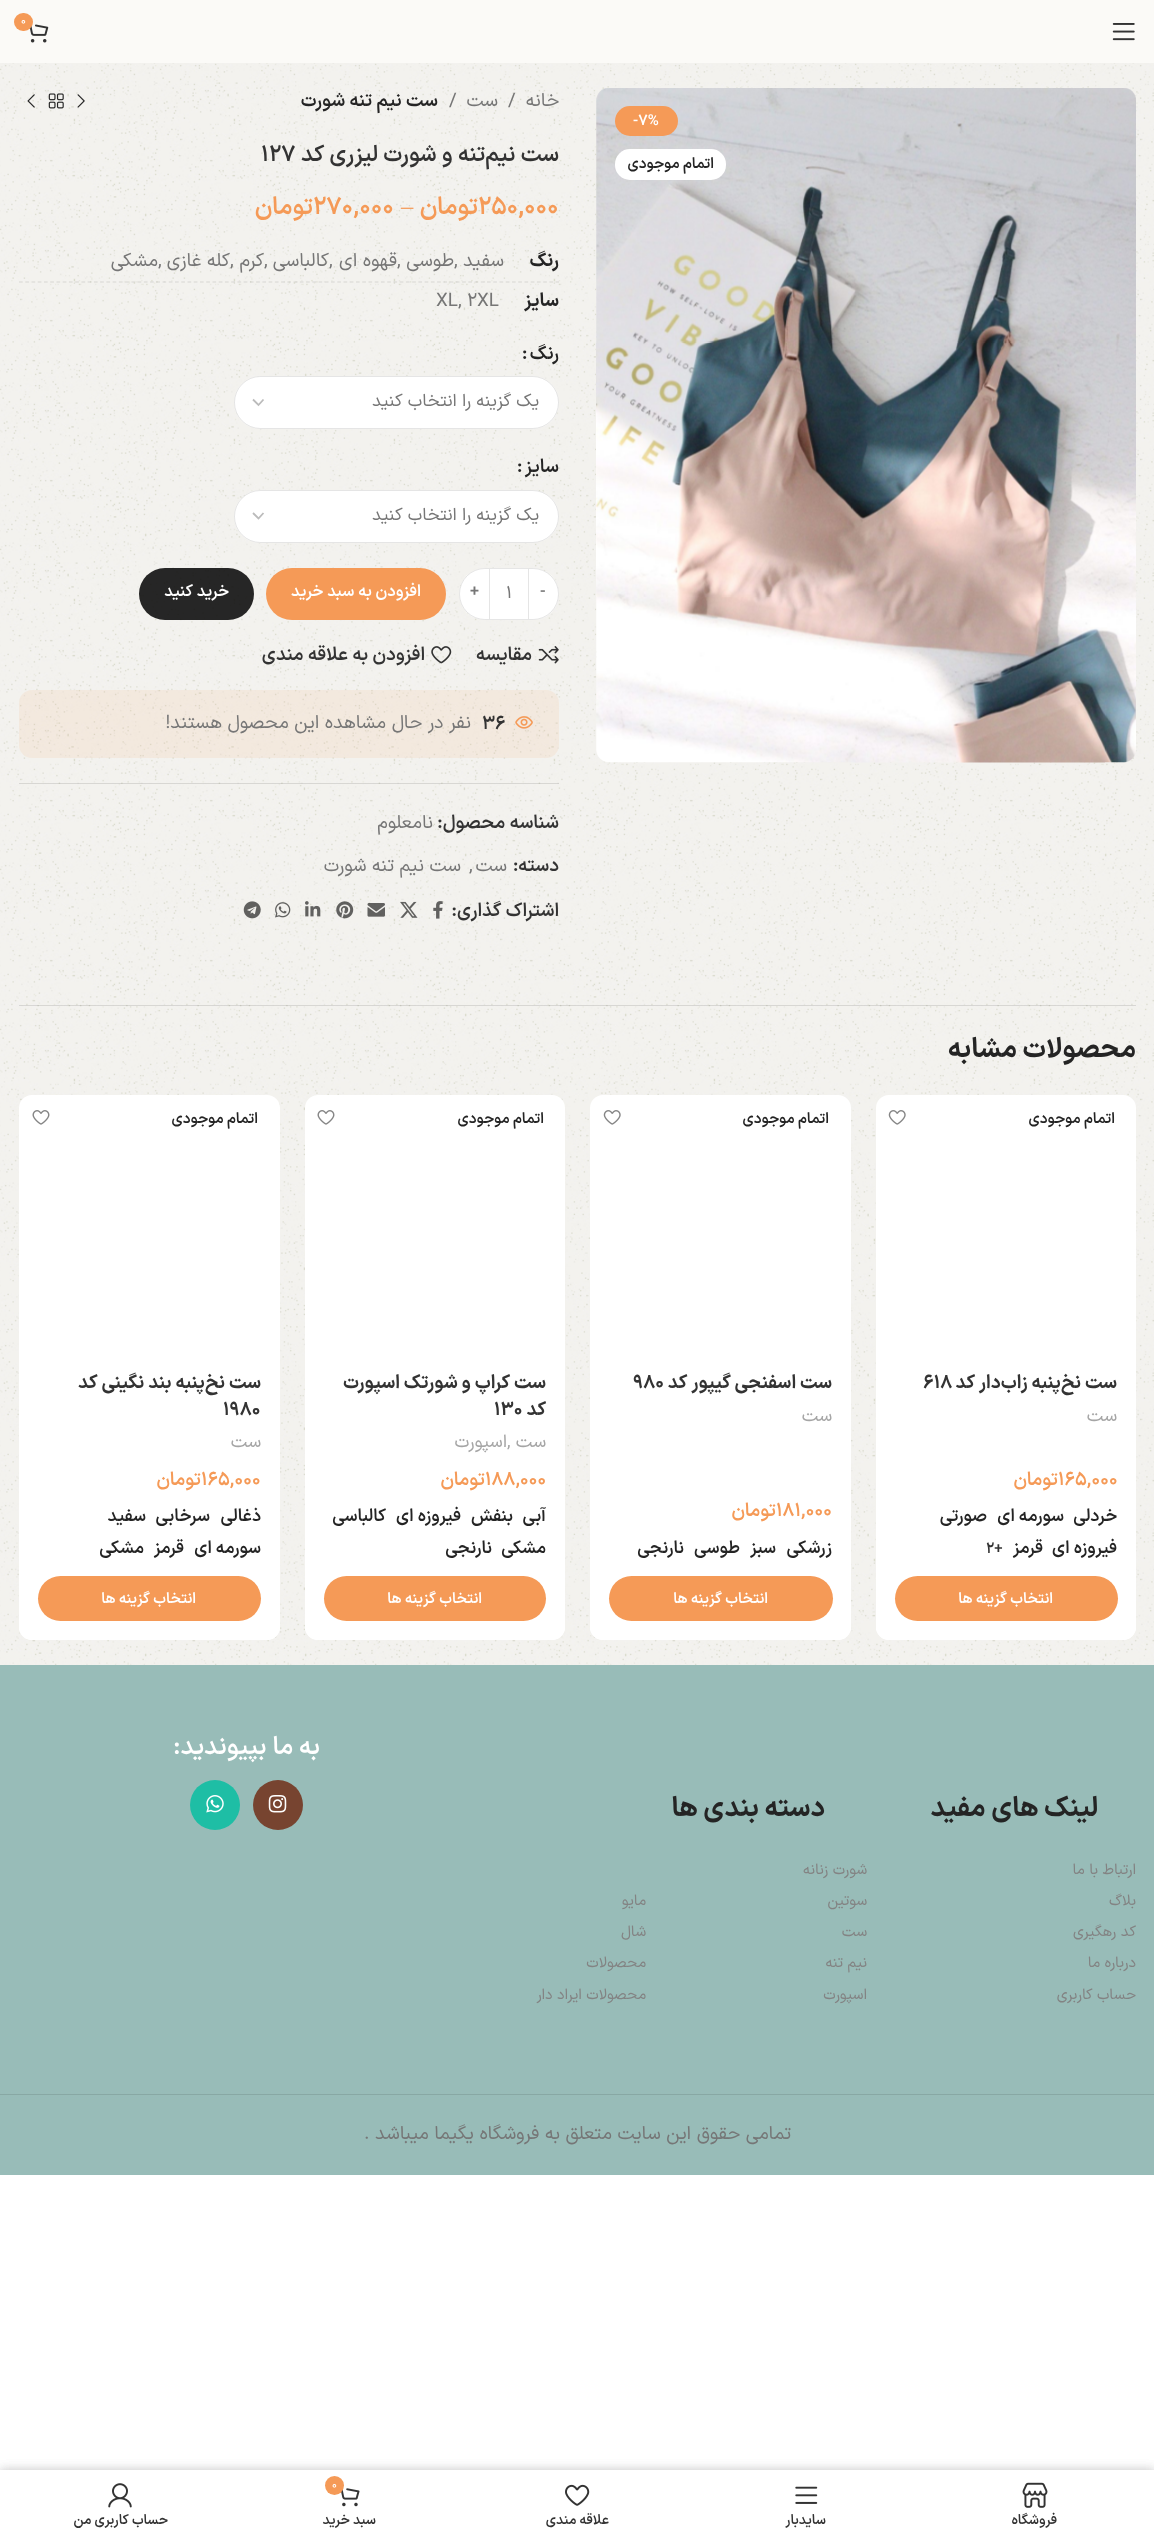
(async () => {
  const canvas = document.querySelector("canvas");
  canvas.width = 1154;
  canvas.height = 2538;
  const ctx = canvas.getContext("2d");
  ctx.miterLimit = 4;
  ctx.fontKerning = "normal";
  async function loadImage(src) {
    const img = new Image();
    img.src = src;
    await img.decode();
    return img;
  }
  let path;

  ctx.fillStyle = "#ffffff";
  ctx.fillRect(0, 0, 1154, 2538);
  ctx.fillStyle = "#fbfaf7";
  ctx.fillRect(0, 0, 1154, 63);
  ctx.drawImage(await loadImage("img/1.png"), 29, 24, 20, 19);
  ctx.fillStyle = "#f59a57";
  ctx.beginPath();
  ctx.roundRect(14, 13, 19, 18, 9);
  ctx.fill();
  ctx.drawImage(await loadImage("img/2.png"), 1112, 23, 23, 18);
  ctx.drawImage(await loadImage("img/3.png"), 0, 63, 1154, 1602);
  ctx.drawImage(await loadImage("img/4.png"), 596, 88, 540, 675);
  ctx.beginPath();
  ctx.roundRect(615, 106, 63, 30, 15);
  ctx.fill();
  ctx.fillStyle = "#ffffff";
  ctx.beginPath();
  ctx.roundRect(615, 149, 111, 31, 15);
  ctx.fill();
  ctx.drawImage(await loadImage("img/5.png"), 77, 94, 8, 14);
  ctx.drawImage(await loadImage("img/6.png"), 48, 93, 16, 16);
  ctx.drawImage(await loadImage("img/7.png"), 27, 94, 8, 14);
  path = new Path2D("M19 282H559");
  ctx.strokeStyle = "rgba(0, 0, 0, 0.11)";
  ctx.lineWidth = 1.2;
  ctx.setLineDash([3.75, 2.49]);
  ctx.stroke(path);
  ctx.beginPath();
  ctx.roundRect(234, 376, 325, 53, 26.5);
  ctx.fill();
  path = new Path2D("M253 399.5L258.5 405L263.5 399.5");
  ctx.strokeStyle = "#bbbbbb";
  ctx.lineWidth = 1.8;
  ctx.setLineDash([]);
  ctx.stroke(path);
  ctx.beginPath();
  ctx.roundRect(234.5, 376.5, 324, 52, 26);
  ctx.strokeStyle = "rgba(0, 0, 0, 0.1)";
  ctx.lineWidth = 1;
  ctx.stroke();
  ctx.beginPath();
  ctx.roundRect(234, 490, 325, 53, 26.5);
  ctx.fill();
  path = new Path2D("M253 513L258.5 518.5L263.5 513");
  ctx.strokeStyle = "#bbbbbb";
  ctx.lineWidth = 1.8;
  ctx.stroke(path);
  ctx.beginPath();
  ctx.roundRect(234.5, 490.5, 324, 52, 26);
  ctx.strokeStyle = "rgba(0, 0, 0, 0.1)";
  ctx.lineWidth = 1;
  ctx.stroke();
  ctx.beginPath();
  ctx.roundRect(528, 568, 31, 52, [0, 26, 26, 0]);
  ctx.fill();
  ctx.beginPath();
  ctx.roundRect(528.5, 568.5, 30, 51, [0, 25.5, 25.5, 0]);
  ctx.stroke();
  for (const [x, y, w, h, color] of [
    [490, 569, 38, 50, "#ffffff"],
    [490, 568, 38, 1, "#e6e6e6"],
    [490, 619, 38, 1, "#e6e6e6"],
  ]) {
    ctx.fillStyle = color;
    ctx.fillRect(x, y, w, h);
  }
  ctx.fillStyle = "#ffffff";
  ctx.beginPath();
  ctx.roundRect(459, 568, 31, 52, [26, 0, 0, 26]);
  ctx.fill();
  ctx.beginPath();
  ctx.roundRect(459.5, 568.5, 30, 51, [25.5, 0, 0, 25.5]);
  ctx.stroke();
  ctx.fillStyle = "#f59a57";
  ctx.beginPath();
  ctx.roundRect(266, 568, 180, 52, 26);
  ctx.fill();
  ctx.fillStyle = "rgba(16, 16, 16, 0.9)";
  ctx.beginPath();
  ctx.roundRect(139, 568, 115, 52, 26);
  ctx.fill();
  ctx.drawImage(await loadImage("img/8.png"), 538, 646, 21, 18);
  ctx.drawImage(await loadImage("img/9.png"), 431, 646, 21, 18);
  ctx.drawImage(await loadImage("img/10.png"), 515, 716, 18, 13);
  ctx.fillStyle = "rgba(245, 154, 87, 0.1)";
  ctx.beginPath();
  ctx.roundRect(19, 690, 540, 68, 13);
  ctx.fill();
  ctx.fillStyle = "rgba(0, 0, 0, 0.11)";
  ctx.fillRect(19, 783, 540, 1);
  ctx.drawImage(await loadImage("img/11.png"), 433, 901, 10, 18);
  ctx.drawImage(await loadImage("img/12.png"), 400, 901, 18, 17);
  ctx.drawImage(await loadImage("img/13.png"), 367, 903, 18, 14);
  ctx.drawImage(await loadImage("img/14.png"), 336, 901, 18, 18);
  ctx.drawImage(await loadImage("img/15.png"), 305, 901, 16, 16);
  ctx.drawImage(await loadImage("img/16.png"), 275, 902, 16, 16);
  ctx.drawImage(await loadImage("img/17.png"), 243, 901, 18, 18);
  ctx.fillRect(19, 1005, 1117, 1);
  ctx.fillStyle = "#ffffff";
  ctx.beginPath();
  ctx.roundRect(876, 1095, 260, 545, 13);
  ctx.fill();
  ctx.drawImage(await loadImage("img/18.png"), 888, 1110, 18, 15);
  ctx.beginPath();
  ctx.roundRect(876, 1356, 260, 284, [0, 0, 13, 13]);
  ctx.fill();
  ctx.fillStyle = "#f59a57";
  ctx.beginPath();
  ctx.roundRect(895, 1576, 223, 45, 22.5);
  ctx.fill();
  ctx.fillStyle = "#ffffff";
  ctx.beginPath();
  ctx.roundRect(590, 1095, 261, 545, 13);
  ctx.fill();
  ctx.drawImage(await loadImage("img/18.png"), 603, 1110, 18, 15);
  ctx.beginPath();
  ctx.roundRect(590, 1356, 261, 284, [0, 0, 13, 13]);
  ctx.fill();
  ctx.fillStyle = "#f59a57";
  ctx.beginPath();
  ctx.roundRect(609, 1576, 224, 45, 22.5);
  ctx.fill();
  ctx.fillStyle = "#ffffff";
  ctx.beginPath();
  ctx.roundRect(305, 1095, 260, 545, 13);
  ctx.fill();
  ctx.drawImage(await loadImage("img/19.png"), 317, 1110, 18, 15);
  ctx.beginPath();
  ctx.roundRect(305, 1356, 260, 284, [0, 0, 13, 13]);
  ctx.fill();
  ctx.fillStyle = "#f59a57";
  ctx.beginPath();
  ctx.roundRect(324, 1576, 222, 45, 22.5);
  ctx.fill();
  ctx.fillStyle = "#ffffff";
  ctx.beginPath();
  ctx.roundRect(19, 1095, 261, 545, 13);
  ctx.fill();
  ctx.drawImage(await loadImage("img/19.png"), 32, 1110, 18, 15);
  ctx.beginPath();
  ctx.roundRect(19, 1356, 261, 284, [0, 0, 13, 13]);
  ctx.fill();
  ctx.fillStyle = "#f59a57";
  ctx.beginPath();
  ctx.roundRect(38, 1576, 223, 45, 22.5);
  ctx.fill();
  ctx.fillStyle = "#98bcb8";
  ctx.fillRect(0, 1665, 1154, 510);
  ctx.fillStyle = "#774430";
  ctx.beginPath();
  ctx.arc(278, 1805, 25, 0, Math.PI * 2);
  ctx.fill();
  ctx.drawImage(await loadImage("img/20.png"), 268, 1795, 19, 18);
  ctx.fillStyle = "#1ebea5";
  ctx.beginPath();
  ctx.arc(215, 1805, 25, 0, Math.PI * 2);
  ctx.fill();
  ctx.drawImage(await loadImage("img/21.png"), 206, 1795, 18, 18);
  ctx.fillStyle = "#88a8a4";
  ctx.fillRect(0, 2094, 1154, 1);
  ctx.fillStyle = "rgba(0, 0, 0, 0.12)";
  ctx.filter = "blur(5.5px)";
  ctx.beginPath();
  ctx.rect(0, 2470, 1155, 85);
  ctx.fill();
  ctx.filter = "none";
  ctx.filter = "blur(5.5px)";
  ctx.beginPath();
  ctx.rect(0, 2470, 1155, 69);
  ctx.fill();
  ctx.filter = "none";
  ctx.fillStyle = "#ffffff";
  ctx.fillRect(0, 2470, 1154, 68);
  ctx.drawImage(await loadImage("img/22.png"), 1022, 2482, 26, 26);
  ctx.drawImage(await loadImage("img/23.png"), 795, 2486, 23, 18);
  ctx.drawImage(await loadImage("img/24.png"), 565, 2484, 25, 22);
  ctx.drawImage(await loadImage("img/25.png"), 341, 2488, 19, 19);
  ctx.fillStyle = "#f59a57";
  ctx.beginPath();
  ctx.arc(334.5, 2485.5, 9.5, 0, Math.PI * 2);
  ctx.fill();
  ctx.drawImage(await loadImage("img/26.png"), 108, 2483, 24, 25);
  ctx.font = "11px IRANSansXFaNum";
  ctx.fillStyle = "#ffffff";
  ctx.fillText("0", 21, 24);
  ctx.font = "600 15px IRANSansXFaNum";
  ctx.fillText("-7%", 633, 125);
  ctx.direction = "rtl";
  ctx.fillStyle = "#242424";
  ctx.fillText("اتمام موجودی", 714, 168);
  ctx.font = "18.75px IRANSansXFaNum";
  ctx.fillStyle = "#767676";
  ctx.fillText("خانه", 559, 106);
  ctx.direction = "ltr";
  ctx.fillText("/", 508, 106);
  ctx.direction = "rtl";
  ctx.fillText("ست", 498, 106);
  ctx.direction = "ltr";
  ctx.fillText("/", 449, 106);
  ctx.direction = "rtl";
  ctx.font = "600 18.75px IRANSansXFaNum";
  ctx.fillStyle = "#242424";
  ctx.fillText("ست نیم تنه شورت", 438, 106);
  ctx.font = "600 22.5px IRANSansXFaNum";
  ctx.fillStyle = "#333333";
  ctx.fillText("ست نیم‌تنه و شورت لیزری کد", 559, 161);
  ctx.direction = "ltr";
  ctx.fillText("۱۲۷", 261, 161);
  ctx.font = "600 24.5px IRANSansXFaNum";
  ctx.fillStyle = "#f59a57";
  ctx.fillText("۲۵۰,۰۰۰", 478, 214);
  ctx.direction = "rtl";
  ctx.fillText("تومان", 478, 214);
  ctx.direction = "ltr";
  ctx.font = "24.5px Liberation Serif";
  ctx.fillText("–", 401, 214);
  ctx.font = "600 24.5px IRANSansXFaNum";
  ctx.fillText("۲۷۰,۰۰۰", 313, 214);
  ctx.direction = "rtl";
  ctx.fillText("تومان", 313, 214);
  ctx.font = "bold 18.75px IRANSansXFaNum";
  ctx.fillStyle = "#242424";
  ctx.fillText("رنگ", 559, 266);
  ctx.font = "18.75px IRANSansXFaNum";
  ctx.fillStyle = "#767676";
  ctx.fillText("سفید", 504, 266);
  ctx.direction = "ltr";
  ctx.fillText(",", 454, 266);
  ctx.direction = "rtl";
  ctx.fillText("طوسی", 454, 266);
  ctx.direction = "ltr";
  ctx.fillText(",", 397, 266);
  ctx.direction = "rtl";
  ctx.fillText("قهوه ای", 397, 266);
  ctx.direction = "ltr";
  ctx.fillText(",", 329, 266);
  ctx.direction = "rtl";
  ctx.fillText("کالباسی", 329, 266);
  ctx.direction = "ltr";
  ctx.fillText(",", 264, 266);
  ctx.direction = "rtl";
  ctx.fillText("کرم", 264, 266);
  ctx.direction = "ltr";
  ctx.fillText(",", 230, 266);
  ctx.direction = "rtl";
  ctx.fillText("کله غازی", 230, 266);
  ctx.direction = "ltr";
  ctx.fillText(",", 158, 266);
  ctx.direction = "rtl";
  ctx.fillText("مشکی", 158, 266);
  ctx.font = "bold 18.75px IRANSansXFaNum";
  ctx.fillStyle = "#242424";
  ctx.fillText("سایز", 559, 306);
  ctx.direction = "ltr";
  ctx.font = "18.75px IRANSansXFaNum";
  ctx.fillStyle = "#767676";
  for (const [text, x, y] of [
    ["2XL", 467, 306],
    ["XL", 436, 306],
    [",", 458, 306],
  ]) {
    ctx.fillText(text, x, y);
  }
  ctx.direction = "rtl";
  ctx.font = "600 18.75px IRANSansXFaNum";
  ctx.fillStyle = "#242424";
  ctx.fillText("رنگ", 559, 359);
  ctx.direction = "ltr";
  ctx.fillText(":", 522, 359);
  ctx.direction = "rtl";
  ctx.font = "17.5px IRANSansXFaNum";
  ctx.fillStyle = "#767676";
  ctx.fillText("یک گزینه را انتخاب کنید", 539, 406);
  ctx.font = "600 18.75px IRANSansXFaNum";
  ctx.fillStyle = "#242424";
  ctx.fillText("سایز", 559, 472);
  ctx.direction = "ltr";
  ctx.fillText(":", 517, 472);
  ctx.direction = "rtl";
  ctx.font = "17.5px IRANSansXFaNum";
  ctx.fillStyle = "#767676";
  ctx.fillText("یک گزینه را انتخاب کنید", 539, 520);
  ctx.direction = "ltr";
  ctx.font = "600 16.25px IRANSansXFaNum";
  ctx.fillText("-", 540, 596);
  ctx.font = "17.5px IRANSansXFaNum";
  ctx.fillText("1", 506, 598);
  ctx.font = "600 16.25px IRANSansXFaNum";
  ctx.fillText("+", 470, 596);
  ctx.direction = "rtl";
  ctx.fillStyle = "#ffffff";
  ctx.fillText("افزودن به سبد خرید", 421, 596);
  ctx.fillText("خرید کنید", 229, 596);
  ctx.font = "600 18.75px IRANSansXFaNum";
  ctx.fillStyle = "#333333";
  ctx.fillText("مقایسه", 532, 660);
  ctx.fillText("افزودن به علاقه مندی", 425, 660);
  ctx.direction = "ltr";
  ctx.fillText("36", 482, 729);
  ctx.direction = "rtl";
  ctx.font = "18.75px IRANSansXFaNum";
  ctx.fillStyle = "#767676";
  ctx.fillText("نفر در حال مشاهده این محصول هستند!", 471, 728);
  ctx.font = "600 18.75px IRANSansXFaNum";
  ctx.fillStyle = "#333333";
  ctx.fillText("شناسه محصول:", 559, 828);
  ctx.font = "18.75px IRANSansXFaNum";
  ctx.fillStyle = "#767676";
  ctx.fillText("نامعلوم", 433, 828);
  ctx.font = "600 18.75px IRANSansXFaNum";
  ctx.fillStyle = "#333333";
  ctx.fillText("دسته:", 559, 871);
  ctx.font = "18.75px IRANSansXFaNum";
  ctx.fillStyle = "#767676";
  ctx.fillText("ست", 507, 871);
  ctx.direction = "ltr";
  ctx.fillText(",", 469, 871);
  ctx.direction = "rtl";
  ctx.fillText("ست نیم تنه شورت", 461, 871);
  ctx.font = "600 18.75px IRANSansXFaNum";
  ctx.fillStyle = "#333333";
  ctx.fillText("اشتراک گذاری:", 559, 916);
  ctx.font = "bold 27.5px IRANSansXFaNum";
  ctx.fillStyle = "#242424";
  ctx.fillText("محصولات مشابه", 1136, 1057);
  ctx.font = "600 15px IRANSansXFaNum";
  ctx.fillText("اتمام موجودی", 1115, 1123);
  ctx.font = "bold 18.75px IRANSansXFaNum";
  ctx.fillStyle = "#333333";
  ctx.fillText("ست نخ‌پنبه زاب‌دار کد", 1117, 1388);
  ctx.direction = "ltr";
  ctx.fillText("۶۱۸", 923, 1388);
  ctx.direction = "rtl";
  ctx.font = "18px IRANSansXFaNum";
  ctx.fillStyle = "#a5a5a5";
  ctx.fillText("ست", 1117, 1421);
  ctx.direction = "ltr";
  ctx.font = "600 18.75px IRANSansXFaNum";
  ctx.fillStyle = "#f59a57";
  ctx.fillText("۱۶۵,۰۰۰", 1058, 1485);
  ctx.direction = "rtl";
  ctx.fillText("تومان", 1058, 1485);
  ctx.font = "600 17.5px IRANSansXFaNum";
  ctx.fillStyle = "#242424";
  for (const [text, x, y] of [
    ["خردلی", 1117, 1521],
    ["سورمه ای", 1064, 1521],
    ["صورتی", 987, 1521],
    ["فیروزه ای", 1117, 1553],
    ["قرمز", 1043, 1553],
  ]) {
    ctx.fillText(text, x, y);
  }
  ctx.direction = "ltr";
  ctx.font = "600 15px IRANSansXFaNum";
  ctx.fillStyle = "#333333";
  ctx.fillText("2+", 986, 1553);
  ctx.direction = "rtl";
  ctx.fillStyle = "#ffffff";
  ctx.fillText("انتخاب گزینه ها", 1053, 1603);
  ctx.fillStyle = "#242424";
  ctx.fillText("اتمام موجودی", 829, 1123);
  ctx.font = "bold 18.75px IRANSansXFaNum";
  ctx.fillStyle = "#333333";
  ctx.fillText("ست اسفنجی گیپور کد", 832, 1388);
  ctx.direction = "ltr";
  ctx.fillText("۹۸۰", 633, 1388);
  ctx.direction = "rtl";
  ctx.font = "18px IRANSansXFaNum";
  ctx.fillStyle = "#a5a5a5";
  ctx.fillText("ست", 832, 1421);
  ctx.direction = "ltr";
  ctx.font = "600 18.75px IRANSansXFaNum";
  ctx.fillStyle = "#f59a57";
  ctx.fillText("۱۸۱,۰۰۰", 776, 1516);
  ctx.direction = "rtl";
  ctx.fillText("تومان", 776, 1516);
  ctx.font = "600 17.5px IRANSansXFaNum";
  ctx.fillStyle = "#242424";
  for (const [text, x, y] of [
    ["زرشکی", 832, 1553],
    ["سبز", 776, 1553],
    ["طوسی", 740, 1553],
    ["نارنجی", 684, 1553],
  ]) {
    ctx.fillText(text, x, y);
  }
  ctx.font = "600 15px IRANSansXFaNum";
  ctx.fillStyle = "#ffffff";
  ctx.fillText("انتخاب گزینه ها", 768, 1603);
  ctx.fillStyle = "#242424";
  ctx.fillText("اتمام موجودی", 544, 1123);
  ctx.font = "bold 18.75px IRANSansXFaNum";
  ctx.fillStyle = "#333333";
  ctx.fillText("ست کراپ و شورتک اسپورت", 546, 1388);
  ctx.fillText("کد", 546, 1415);
  ctx.direction = "ltr";
  ctx.fillText("۱۳۰", 494, 1415);
  ctx.direction = "rtl";
  ctx.font = "18px IRANSansXFaNum";
  ctx.fillStyle = "#a5a5a5";
  ctx.fillText("ست", 546, 1447);
  ctx.direction = "ltr";
  ctx.fillText(",", 507, 1447);
  ctx.direction = "rtl";
  ctx.fillText("اسپورت", 507, 1447);
  ctx.direction = "ltr";
  ctx.font = "600 18.75px IRANSansXFaNum";
  ctx.fillStyle = "#f59a57";
  ctx.fillText("۱۸۸,۰۰۰", 485, 1485);
  ctx.direction = "rtl";
  ctx.fillText("تومان", 485, 1485);
  ctx.font = "600 17.5px IRANSansXFaNum";
  ctx.fillStyle = "#242424";
  for (const [text, x, y] of [
    ["آبی", 546, 1521],
    ["بنفش", 513, 1521],
    ["فیروزه ای", 461, 1521],
    ["کالباسی", 386, 1521],
    ["مشکی", 546, 1553],
    ["نارنجی", 492, 1553],
  ]) {
    ctx.fillText(text, x, y);
  }
  ctx.font = "600 15px IRANSansXFaNum";
  ctx.fillStyle = "#ffffff";
  ctx.fillText("انتخاب گزینه ها", 482, 1603);
  ctx.fillStyle = "#242424";
  ctx.fillText("اتمام موجودی", 258, 1123);
  ctx.font = "bold 18.75px IRANSansXFaNum";
  ctx.fillStyle = "#333333";
  ctx.fillText("ست نخ‌پنبه بند نگینی کد", 261, 1388);
  ctx.direction = "ltr";
  ctx.fillText("۱۹۸۰", 223, 1415);
  ctx.direction = "rtl";
  ctx.font = "18px IRANSansXFaNum";
  ctx.fillStyle = "#a5a5a5";
  ctx.fillText("ست", 261, 1447);
  ctx.direction = "ltr";
  ctx.font = "600 18.75px IRANSansXFaNum";
  ctx.fillStyle = "#f59a57";
  ctx.fillText("۱۶۵,۰۰۰", 201, 1485);
  ctx.direction = "rtl";
  ctx.fillText("تومان", 201, 1485);
  ctx.font = "600 17.5px IRANSansXFaNum";
  ctx.fillStyle = "#242424";
  for (const [text, x, y] of [
    ["ذغالی", 261, 1521],
    ["سرخابی", 210, 1521],
    ["سفید", 146, 1521],
    ["سورمه ای", 261, 1553],
    ["قرمز", 184, 1553],
    ["مشکی", 144, 1553],
  ]) {
    ctx.fillText(text, x, y);
  }
  ctx.font = "600 15px IRANSansXFaNum";
  ctx.fillStyle = "#ffffff";
  ctx.fillText("انتخاب گزینه ها", 196, 1603);
  ctx.font = "600 25px IRANSansXFaNum";
  ctx.fillText("به ما بپیوندید:", 320, 1754);
  ctx.font = "bold 27.5px IRANSansXFaNum";
  ctx.fillStyle = "#242424";
  ctx.fillText("لینک های مفید", 1098, 1816);
  ctx.font = "15px IRANSansXFaNum";
  ctx.fillStyle = "#838383";
  for (const [text, x, y] of [
    ["ارتباط با ما", 1136, 1874],
    ["بلاگ", 1136, 1905],
    ["کد رهگیری", 1136, 1936],
    ["درباره ما", 1136, 1967],
    ["حساب کاربری", 1136, 1999],
  ]) {
    ctx.fillText(text, x, y);
  }
  ctx.font = "bold 27.5px IRANSansXFaNum";
  ctx.fillStyle = "#242424";
  ctx.fillText("دسته بندی ها", 825, 1816);
  ctx.font = "15px IRANSansXFaNum";
  ctx.fillStyle = "#838383";
  for (const [text, x, y] of [
    ["شورت زنانه", 867, 1874],
    ["سوتین", 867, 1905],
    ["ست", 867, 1936],
    ["نیم تنه", 867, 1967],
    ["اسپورت", 867, 1999],
    ["مایو", 646, 1905],
    ["شال", 646, 1936],
    ["محصولات", 646, 1967],
    ["محصولات ایراد دار", 646, 1999],
  ]) {
    ctx.fillText(text, x, y);
  }
  ctx.font = "18.75px IRANSansXFaNum";
  ctx.fillStyle = "#767676";
  ctx.fillText("تمامی حقوق این سایت متعلق به فروشگاه یگیما میباشد .", 791, 2139);
  ctx.font = "600 13.75px IRANSansXFaNum";
  ctx.fillStyle = "#333333";
  for (const [text, x, y] of [
    ["فروشگاه", 1057, 2524],
    ["سایدبار", 826, 2524],
    ["علاقه مندی", 609, 2524],
  ]) {
    ctx.fillText(text, x, y);
  }
  ctx.direction = "ltr";
  ctx.font = "11px IRANSansXFaNum";
  ctx.fillStyle = "#ffffff";
  ctx.fillText("0", 332, 2488);
  ctx.direction = "rtl";
  ctx.font = "600 13.75px IRANSansXFaNum";
  ctx.fillStyle = "#333333";
  ctx.fillText("سبد خرید", 376, 2524);
  ctx.fillText("حساب کاربری من", 168, 2524);
})();
